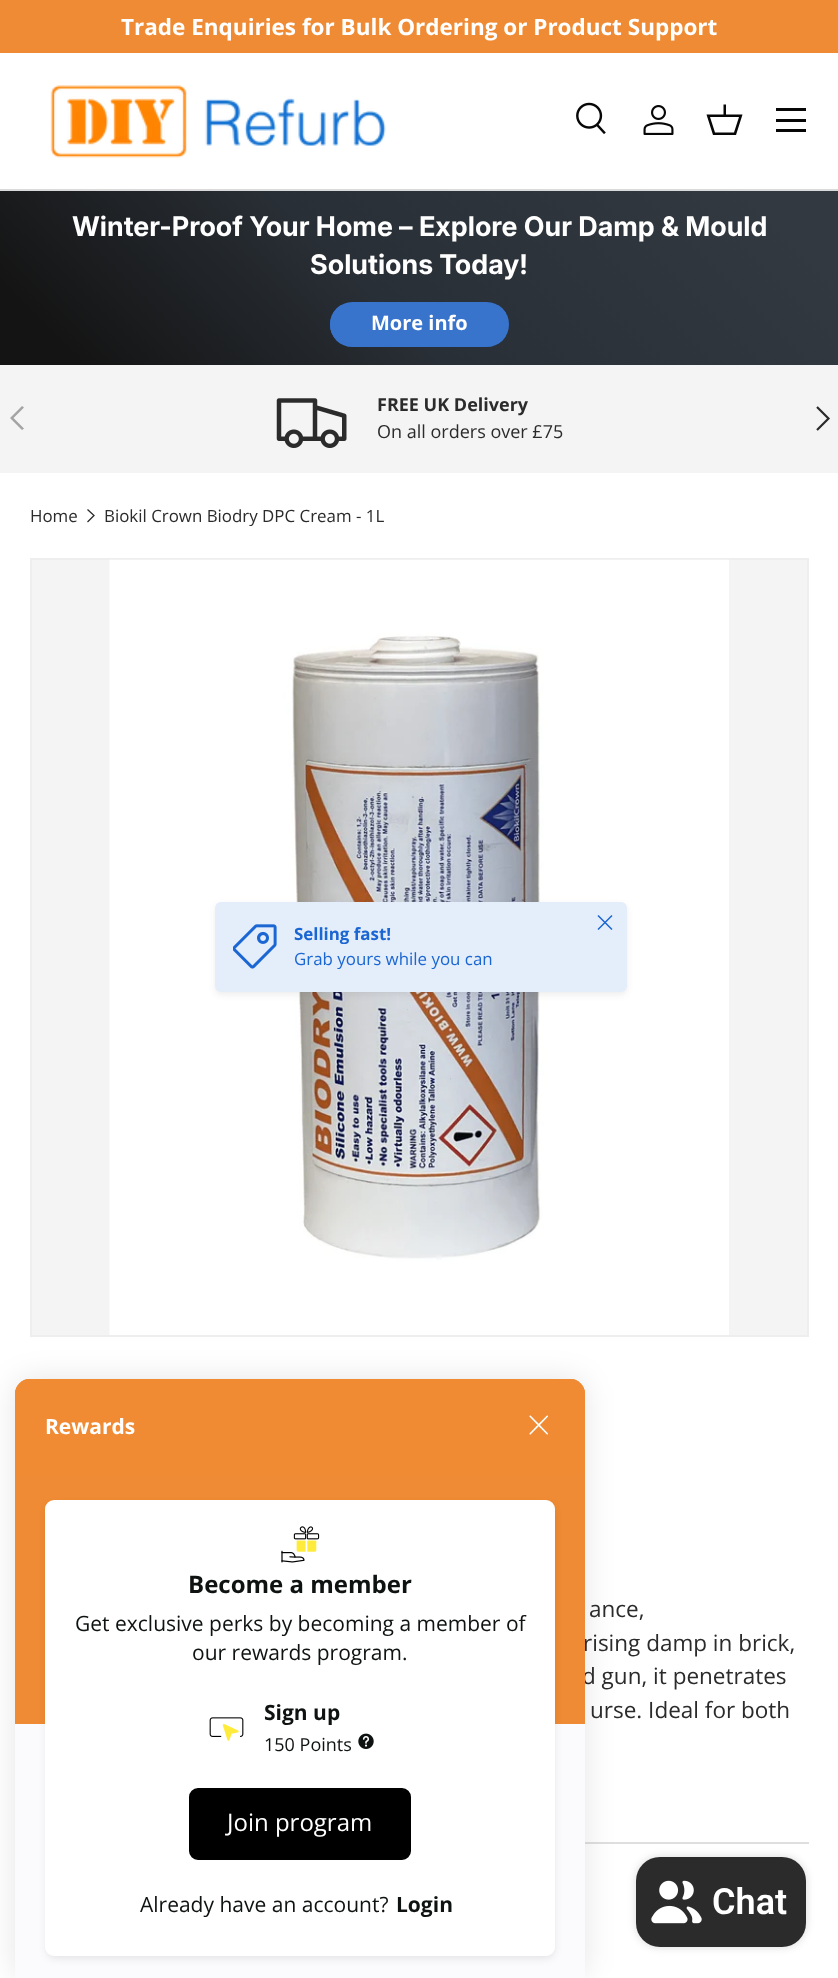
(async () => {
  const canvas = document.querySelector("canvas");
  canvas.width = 838;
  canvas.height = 1978;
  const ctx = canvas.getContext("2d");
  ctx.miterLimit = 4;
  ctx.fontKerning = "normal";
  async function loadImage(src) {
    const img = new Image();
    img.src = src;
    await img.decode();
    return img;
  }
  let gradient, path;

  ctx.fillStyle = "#ffffff";
  ctx.fillRect(0, 0, 838, 1978);
  ctx.fillStyle = "#ef8b34";
  ctx.fillRect(0, 0, 838, 53);
  ctx.fillStyle = "#dadada";
  ctx.fillRect(0, 189, 838, 2);
  ctx.drawImage(await loadImage("img/1.png"), 50, 85, 336, 73);
  ctx.drawImage(await loadImage("img/2.png"), 576, 102, 30, 32);
  ctx.drawImage(await loadImage("img/3.png"), 643, 105, 31, 30);
  ctx.fillStyle = "#070707";
  path = new Path2D("M723.5 114.5V104.5H726V114.5H742.5L736 135H713L706.5 114.5ZM710 117L715 132.5H734L739 117Z");
  ctx.fill(path);
  for (const [x, y, w, h, color] of [
    [776, 108, 30, 3, "#070707"],
    [776, 129, 30, 3, "#070707"],
    [776, 119, 30, 3, "#070707"],
  ]) {
    ctx.fillStyle = color;
    ctx.fillRect(x, y, w, h);
  }
  gradient = ctx.createLinearGradient(672, 24, 166, 531);
  gradient.addColorStop(0.08, "#323940");
  gradient.addColorStop(0.56, "#292f36");
  gradient.addColorStop(0.92, "#141414");
  ctx.fillStyle = gradient;
  ctx.fillRect(0, 191, 838, 174);
  ctx.save();
  ctx.beginPath();
  ctx.roundRect(330, 302, 179, 45, 22.5);
  ctx.clip();
  gradient = ctx.createLinearGradient(-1.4, 262, 495, 386);
  gradient.addColorStop(0.6, "#6291d7");
  gradient.addColorStop(0.6, "#3873cc");
  gradient.addColorStop(1, "#3873cc");
  ctx.fillStyle = gradient;
  ctx.fillRect(330, 305, 176, 39);
  ctx.restore();
  ctx.beginPath();
  ctx.roundRect(331.5, 303.5, 176, 42, 21);
  ctx.strokeStyle = "#3873cc";
  ctx.lineWidth = 3;
  ctx.stroke();
  ctx.fillStyle = "#f4f4f4";
  ctx.fillRect(0, 365, 838, 108);
  ctx.drawImage(await loadImage("img/4.png"), 276, 398, 71, 50);
  ctx.fillStyle = "#a3a4a3";
  path = new Path2D("M10 418L22 406L24 407.5L13.5 418L24 428.5L22 430Z");
  ctx.fill(path);
  path = new Path2D("M817 407L828.5 418.5L817 430");
  ctx.strokeStyle = "#2a2b2a";
  ctx.lineWidth = 2.2;
  ctx.stroke(path);
  path = new Path2D("M87.5 509.5L94 515.5L87.5 522");
  ctx.lineWidth = 1.3;
  ctx.stroke(path);
  ctx.fillStyle = "#f4f4f4";
  ctx.beginPath();
  ctx.rect(31, 559, 777, 777);
  ctx.fill();
  ctx.strokeStyle = "#eeeeee";
  ctx.lineWidth = 2;
  ctx.stroke();
  ctx.drawImage(await loadImage("img/5.png"), 109, 559, 620, 776);
  ctx.fillStyle = "rgba(33, 43, 54, 0.08)";
  ctx.filter = "blur(3px)";
  ctx.beginPath();
  ctx.roundRect(215, 905, 412, 90, 6);
  ctx.fill();
  ctx.filter = "none";
  ctx.fillStyle = "#e4edfa";
  ctx.beginPath();
  ctx.roundRect(215, 902, 412, 90, 6);
  ctx.fill();
  path = new Path2D("M598 929.5L612 915.5M598 915.5L612 929.5");
  ctx.strokeStyle = "#1a66d2";
  ctx.lineWidth = 1.5;
  ctx.lineJoin = "round";
  ctx.stroke(path);
  ctx.drawImage(await loadImage("img/6.png"), 233, 924, 44, 45);
  ctx.fillStyle = "#dfdfdf";
  ctx.fillRect(585, 1842, 224, 2);
  ctx.fillStyle = "rgba(0, 0, 0, 0.1)";
  ctx.filter = "blur(15px)";
  ctx.beginPath();
  ctx.roundRect(15, 1379, 570, 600, 15);
  ctx.fill();
  ctx.filter = "none";
  ctx.fillStyle = "rgba(0, 0, 0, 0.15)";
  ctx.filter = "blur(4px)";
  ctx.beginPath();
  ctx.roundRect(636, 1857, 170, 90, 24);
  ctx.fill();
  ctx.filter = "none";
  ctx.fillStyle = "#2a2b2a";
  ctx.beginPath();
  ctx.roundRect(636, 1857, 170, 90, 24);
  ctx.fill();
  ctx.drawImage(await loadImage("img/11.png"), 651, 1880, 51, 44);
  ctx.font = "bold 22.5px Open Sans";
  ctx.fillStyle = "#ffffff";
  ctx.fillText("Trade Enquiries for Bulk Ordering or Product Support", 121, 35);
  ctx.font = "bold 27.1px Inter";
  ctx.fillText("Winter-Proof Your Home – Explore Our Damp & Mould", 72, 236);
  ctx.fillText("Solutions Today!", 310, 274);
  ctx.font = "bold 20px Open Sans";
  ctx.fillText("More info", 371, 330);
  ctx.font = "bold 18px Open Sans";
  ctx.fillStyle = "#2a2b2a";
  ctx.fillText("FREE UK Delivery", 377, 411);
  ctx.font = "18px Open Sans";
  ctx.fillText("On all orders over £75", 377, 438);
  ctx.font = "16.9px Open Sans";
  ctx.fillText("Home", 30, 522);
  ctx.fillText("Biokil Crown Biodry DPC Cream - 1L", 104, 522);
  ctx.font = "bold 16.9px Open Sans";
  ctx.fillStyle = "#1a66d2";
  ctx.fillText("Selling fast!", 294, 940);
  ctx.font = "16.9px Open Sans";
  ctx.fillText("Grab yours while you can", 294, 965);
  ctx.font = "22.5px Open Sans";
  ctx.fillStyle = "#2a2b2a";
  for (const [text, x, y] of [
    ["ance,", 589, 1617],
    ["rising damp in brick,", 583, 1651],
    ["d gun, it penetrates", 582, 1684],
    ["urse. Ideal for both", 590, 1718],
  ]) {
    ctx.fillText(text, x, y);
  }
  ctx.fillStyle = "#fbfbfd";
  path = new Path2D("M30 1379H570C578.5 1379 585 1385.5 585 1394V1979H15V1394C15 1385.5 21.5 1379 30 1379Z");
  ctx.fill(path);
  ctx.fillStyle = "#ef8b34";
  ctx.beginPath();
  ctx.roundRect(15, 1379, 570, 345, [15, 15, 0, 0]);
  ctx.fill();
  ctx.fillStyle = "rgba(239, 139, 52, 0.9)";
  ctx.beginPath();
  ctx.roundRect(15, 1379, 570, 96, [15, 15, 0, 0]);
  ctx.fill();
  ctx.beginPath();
  ctx.roundRect(15, 1379, 570, 96, [15, 15, 0, 0]);
  ctx.fill();
  ctx.drawImage(await loadImage("img/7.png"), 529, 1415, 19, 20);
  ctx.font = "bold 21px Open Sans";
  ctx.fillStyle = "#ffffff";
  ctx.fillText("Rewards", 45, 1434);
  ctx.fillStyle = "rgba(0, 0, 0, 0.1)";
  ctx.filter = "blur(4.5px)";
  ctx.beginPath();
  ctx.roundRect(47, 1505, 507, 453, 8);
  ctx.fill();
  ctx.filter = "none";
  ctx.fillStyle = "#ffffff";
  ctx.beginPath();
  ctx.roundRect(45, 1500, 510, 456, 9);
  ctx.fill();
  ctx.drawImage(await loadImage("img/8.png"), 281, 1526, 39, 37);
  ctx.font = "bold 24px Open Sans";
  ctx.fillStyle = "#0e1311";
  ctx.fillText("Become a member", 188, 1593);
  ctx.font = "21px Open Sans";
  ctx.fillText("Get exclusive perks by becoming a member of", 75, 1631);
  ctx.fillText("our rewards program.", 192, 1660);
  ctx.drawImage(await loadImage("img/9.png"), 209, 1717, 35, 24);
  ctx.font = "bold 21px Open Sans";
  ctx.fillText("Sign up", 264, 1720);
  ctx.font = "18px Open Sans";
  ctx.fillText("150 Points", 264, 1751);
  ctx.drawImage(await loadImage("img/10.png"), 358, 1733, 16, 16);
  ctx.fillStyle = "#000000";
  ctx.beginPath();
  ctx.roundRect(190, 1789, 220, 70, 8);
  ctx.fill();
  ctx.strokeStyle = "#000000";
  ctx.lineWidth = 2;
  ctx.lineJoin = "miter";
  ctx.stroke();
  ctx.font = "24px Open Sans";
  ctx.fillStyle = "#ffffff";
  ctx.fillText("Join program", 227, 1831);
  ctx.font = "21px Open Sans";
  ctx.fillStyle = "#0e1311";
  ctx.fillText("Already have an account?", 140, 1912);
  ctx.font = "bold 21px Open Sans";
  ctx.fillText("Login", 396, 1912);
  ctx.font = "600 36px Roboto";
  ctx.fillStyle = "#ffffff";
  ctx.fillText("Chat", 712, 1914);
})();
